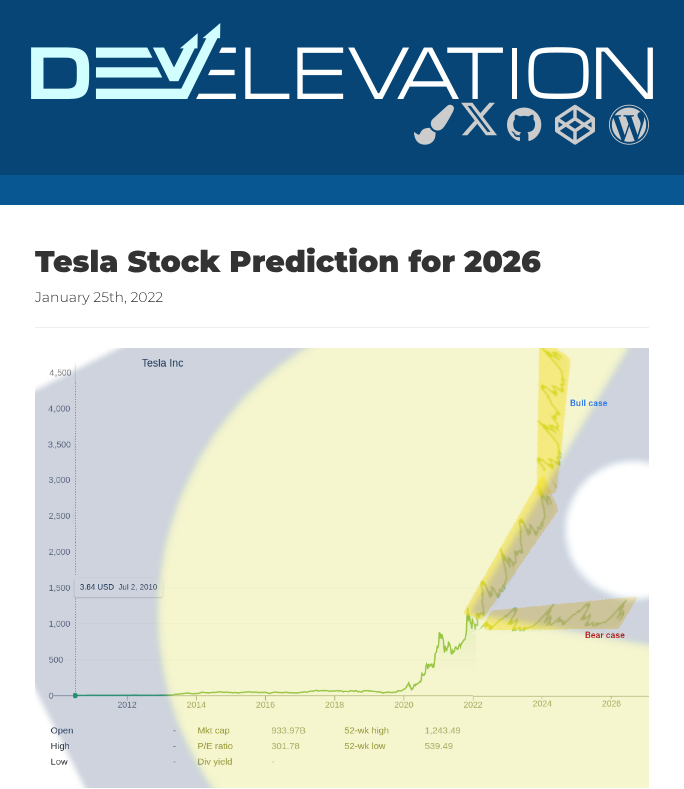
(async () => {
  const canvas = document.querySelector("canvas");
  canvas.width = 684;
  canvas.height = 789;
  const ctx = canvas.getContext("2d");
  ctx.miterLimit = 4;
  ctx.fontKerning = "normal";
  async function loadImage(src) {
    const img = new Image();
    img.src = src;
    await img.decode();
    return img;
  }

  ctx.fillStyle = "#085692";
  ctx.fillRect(0, 0, 684, 789);
  ctx.fillStyle = "#064575";
  ctx.fillRect(0, 0, 684, 175);
  ctx.drawImage(await loadImage("img/1.png"), 31, 23, 622, 76);
  ctx.drawImage(await loadImage("img/2.png"), 414, 104, 40, 41);
  ctx.drawImage(await loadImage("img/3.png"), 461, 102, 36, 34);
  ctx.drawImage(await loadImage("img/4.png"), 507, 107, 35, 34);
  ctx.drawImage(await loadImage("img/5.png"), 555, 104, 40, 41);
  ctx.drawImage(await loadImage("img/6.png"), 609, 104, 40, 41);
  ctx.fillStyle = "#ffffff";
  ctx.fillRect(0, 205, 684, 584);
  ctx.fillStyle = "#eeeeee";
  ctx.fillRect(35, 327, 614, 1);
  ctx.drawImage(await loadImage("img/7.png"), 35, 348, 614, 440);
  ctx.font = "900 30px Montserrat";
  ctx.fillStyle = "#333333";
  ctx.fillText("Tesla Stock Prediction for 2026", 35, 272);
  ctx.font = "300 14px Montserrat";
  ctx.fillText("January 25th, 2022", 35, 302);
})();
